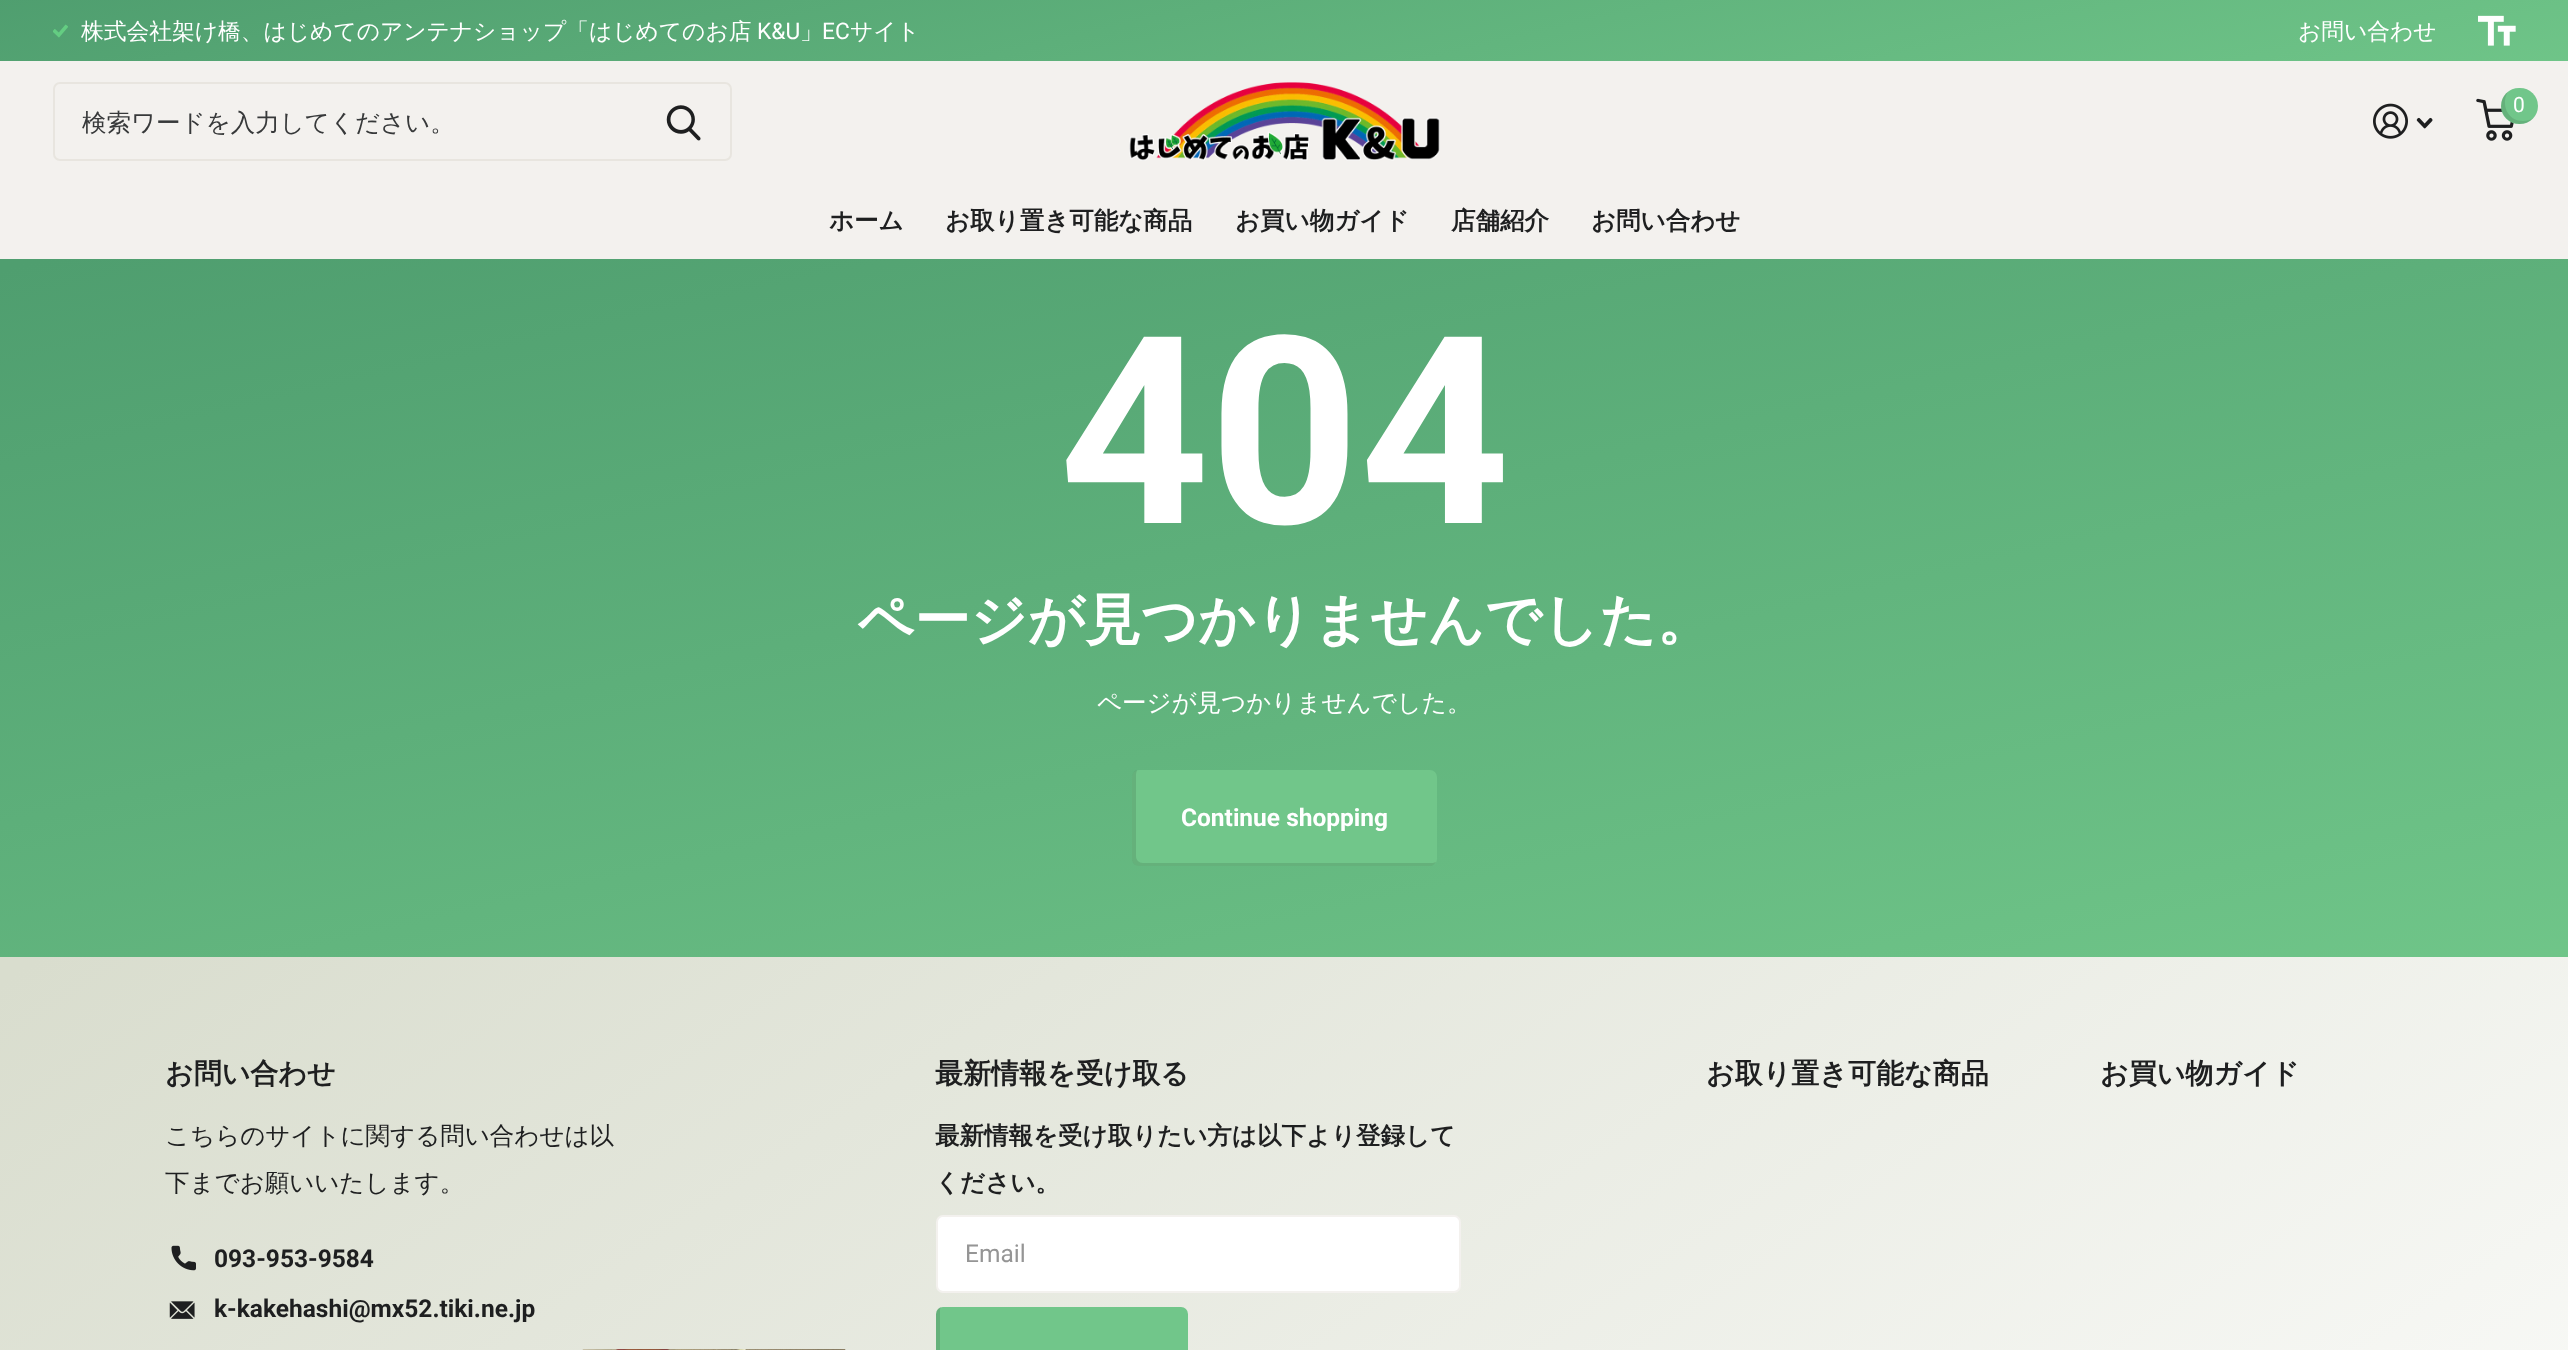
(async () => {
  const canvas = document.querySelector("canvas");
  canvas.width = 2568;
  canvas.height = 1350;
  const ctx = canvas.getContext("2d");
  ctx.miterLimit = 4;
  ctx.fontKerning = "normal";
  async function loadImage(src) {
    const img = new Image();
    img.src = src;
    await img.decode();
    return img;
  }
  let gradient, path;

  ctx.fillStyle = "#f3f1ee";
  ctx.fillRect(0, 0, 2568, 1350);
  gradient = ctx.createLinearGradient(1206, -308, 1363, 369);
  gradient.addColorStop(0.03, "#4f9e6f");
  gradient.addColorStop(1, "#70c689");
  ctx.fillStyle = gradient;
  ctx.fillRect(0, 0, 2568, 61);
  ctx.drawImage(await loadImage("img/1.png"), 53, 24, 15, 14);
  ctx.drawImage(await loadImage("img/2.png"), 2478, 15, 38, 31);
  ctx.drawImage(await loadImage("img/3.png"), 2373, 103, 35, 36);
  ctx.drawImage(await loadImage("img/4.png"), 2416, 117, 17, 12);
  ctx.drawImage(await loadImage("img/5.png"), 2476, 98, 38, 43);
  ctx.fillStyle = "#71c68a";
  ctx.beginPath();
  ctx.roundRect(2501, 88, 37, 36, 18);
  ctx.fill();
  ctx.fillStyle = "rgba(0, 0, 0, 0.1)";
  path = new Path2D("M2533.5 118C2530.5 120 2527 121 2523 121C2506 121 2501 102.5 2508 91.5C2499.5 98 2498.5 111 2506.5 118.5C2513.5 126 2526.5 125.5 2533.5 118Z");
  ctx.fill(path);
  ctx.beginPath();
  ctx.roundRect(54, 83, 677, 77, 6);
  ctx.strokeStyle = "#e8e5df";
  ctx.lineWidth = 2;
  ctx.stroke();
  ctx.drawImage(await loadImage("img/6.png"), 666, 105, 35, 36);
  ctx.drawImage(await loadImage("img/7.png"), 1129, 82, 311, 79);
  gradient = ctx.createLinearGradient(1137, -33, 1432, 1249);
  gradient.addColorStop(0.03, "#4f9e6f");
  gradient.addColorStop(1, "#70c689");
  ctx.fillStyle = gradient;
  ctx.fillRect(0, 259, 2568, 698);
  ctx.fillStyle = "#71c68a";
  ctx.beginPath();
  ctx.roundRect(1132, 770, 305, 96, 7);
  ctx.fill();
  ctx.fillStyle = "rgba(0, 0, 0, 0.1)";
  path = new Path2D("M1137 770C1134 771 1132 774 1132 777V859C1132 863 1135 866 1139 866H1430C1433 866 1435 864 1436 862L1433 863H1143C1139 863 1136 860 1136 856V774Z");
  ctx.fill(path);
  gradient = ctx.createLinearGradient(632, 445, 1937, 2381);
  gradient.addColorStop(0.04, "#d9ddce");
  gradient.addColorStop(0.99, "#ffffff");
  ctx.fillStyle = gradient;
  ctx.fillRect(0, 957, 2568, 393);
  ctx.drawImage(await loadImage("img/8.png"), 171, 1245, 25, 26);
  ctx.drawImage(await loadImage("img/9.png"), 169, 1301, 26, 18);
  ctx.drawImage(await loadImage("img/10.png"), 582, 1349, 264, 1);
  ctx.fillStyle = "#ffffff";
  ctx.beginPath();
  ctx.roundRect(937, 1216, 523, 76, 6);
  ctx.fill();
  ctx.strokeStyle = "#f3f1ee";
  ctx.stroke();
  ctx.fillStyle = "#71c68a";
  ctx.beginPath();
  ctx.roundRect(936, 1307, 252, 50, 7);
  ctx.fill();
  ctx.fillStyle = "rgba(0, 0, 0, 0.1)";
  path = new Path2D("M941 1307C938 1308 936 1311 936 1314V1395C936 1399 939 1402 943 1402H1181C1184 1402 1186 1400 1188 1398H1185H947C943 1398 940 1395 940 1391V1311C940 1310 940 1308 941 1307Z");
  ctx.fill(path);
  ctx.font = "500 22.75px WenQuanYi Zen Hei";
  ctx.fillStyle = "#ffffff";
  ctx.fillText("株式会社架け橋、はじめてのアンテナショップ「はじめてのお店", 81, 39);
  ctx.font = "22.75px Roboto";
  ctx.fillText("K&U", 757, 39);
  ctx.font = "500 22.75px WenQuanYi Zen Hei";
  ctx.fillText("」", 800, 39);
  ctx.font = "22.75px Roboto";
  ctx.fillText("EC", 822, 39);
  ctx.font = "500 22.75px WenQuanYi Zen Hei";
  ctx.fillText("サイト", 850, 39);
  ctx.fillText("お問い合わせ", 2298, 39);
  ctx.font = "21px Roboto";
  ctx.fillText("0", 2513, 112);
  ctx.font = "500 24.5px WenQuanYi Zen Hei";
  ctx.fillStyle = "#37393a";
  ctx.fillText("検索ワードを入力してください。", 82, 131);
  ctx.font = "bold 24.5px WenQuanYi Zen Hei";
  ctx.fillStyle = "#1e1f20";
  for (const [text, x, y] of [
    ["ホーム", 829, 229],
    ["お取り置き可能な商品", 945, 229],
    ["お買い物ガイド", 1235, 229],
    ["店舗紹介", 1451, 229],
    ["お問い合わせ", 1591, 229],
  ]) {
    ctx.fillText(text, x, y);
  }
  ctx.font = "bold 262px Roboto";
  ctx.fillStyle = "#ffffff";
  ctx.fillText("404", 1059, 523);
  ctx.font = "bold 56px WenQuanYi Zen Hei";
  ctx.fillText("ページが見つかりませんでした。", 857, 639);
  ctx.font = "500 24.5px WenQuanYi Zen Hei";
  ctx.fillText("ページが見つかりませんでした。", 1097, 711);
  ctx.font = "bold 24.5px Roboto";
  ctx.fillText("Continue shopping", 1181, 826);
  ctx.font = "bold 28px WenQuanYi Zen Hei";
  ctx.fillStyle = "#1e1f20";
  ctx.fillText("お問い合わせ", 165, 1083);
  ctx.font = "500 24.5px WenQuanYi Zen Hei";
  ctx.fillText("こちらのサイトに関する問い合わせは以", 165, 1144);
  ctx.fillText("下までお願いいたします。", 165, 1191);
  ctx.font = "bold 24.5px Roboto";
  ctx.fillText("093-953-9584", 214, 1267);
  ctx.fillText("k-kakehashi@mx52.tiki.ne.jp", 214, 1317);
  ctx.font = "bold 28px WenQuanYi Zen Hei";
  ctx.fillText("最新情報を受け取る", 935, 1083);
  ctx.font = "bold 24.5px WenQuanYi Zen Hei";
  ctx.fillText("最新情報を受け取りたい方は以下より登録して", 935, 1144);
  ctx.fillText("ください。", 935, 1191);
  ctx.font = "24.5px Roboto";
  ctx.fillStyle = "#959595";
  ctx.fillText("Email", 965, 1262);
  ctx.font = "bold 28px WenQuanYi Zen Hei";
  ctx.fillStyle = "#1e1f20";
  ctx.fillText("お取り置き可能な商品", 1706, 1083);
  ctx.fillText("お買い物ガイド", 2100, 1083);
})();
